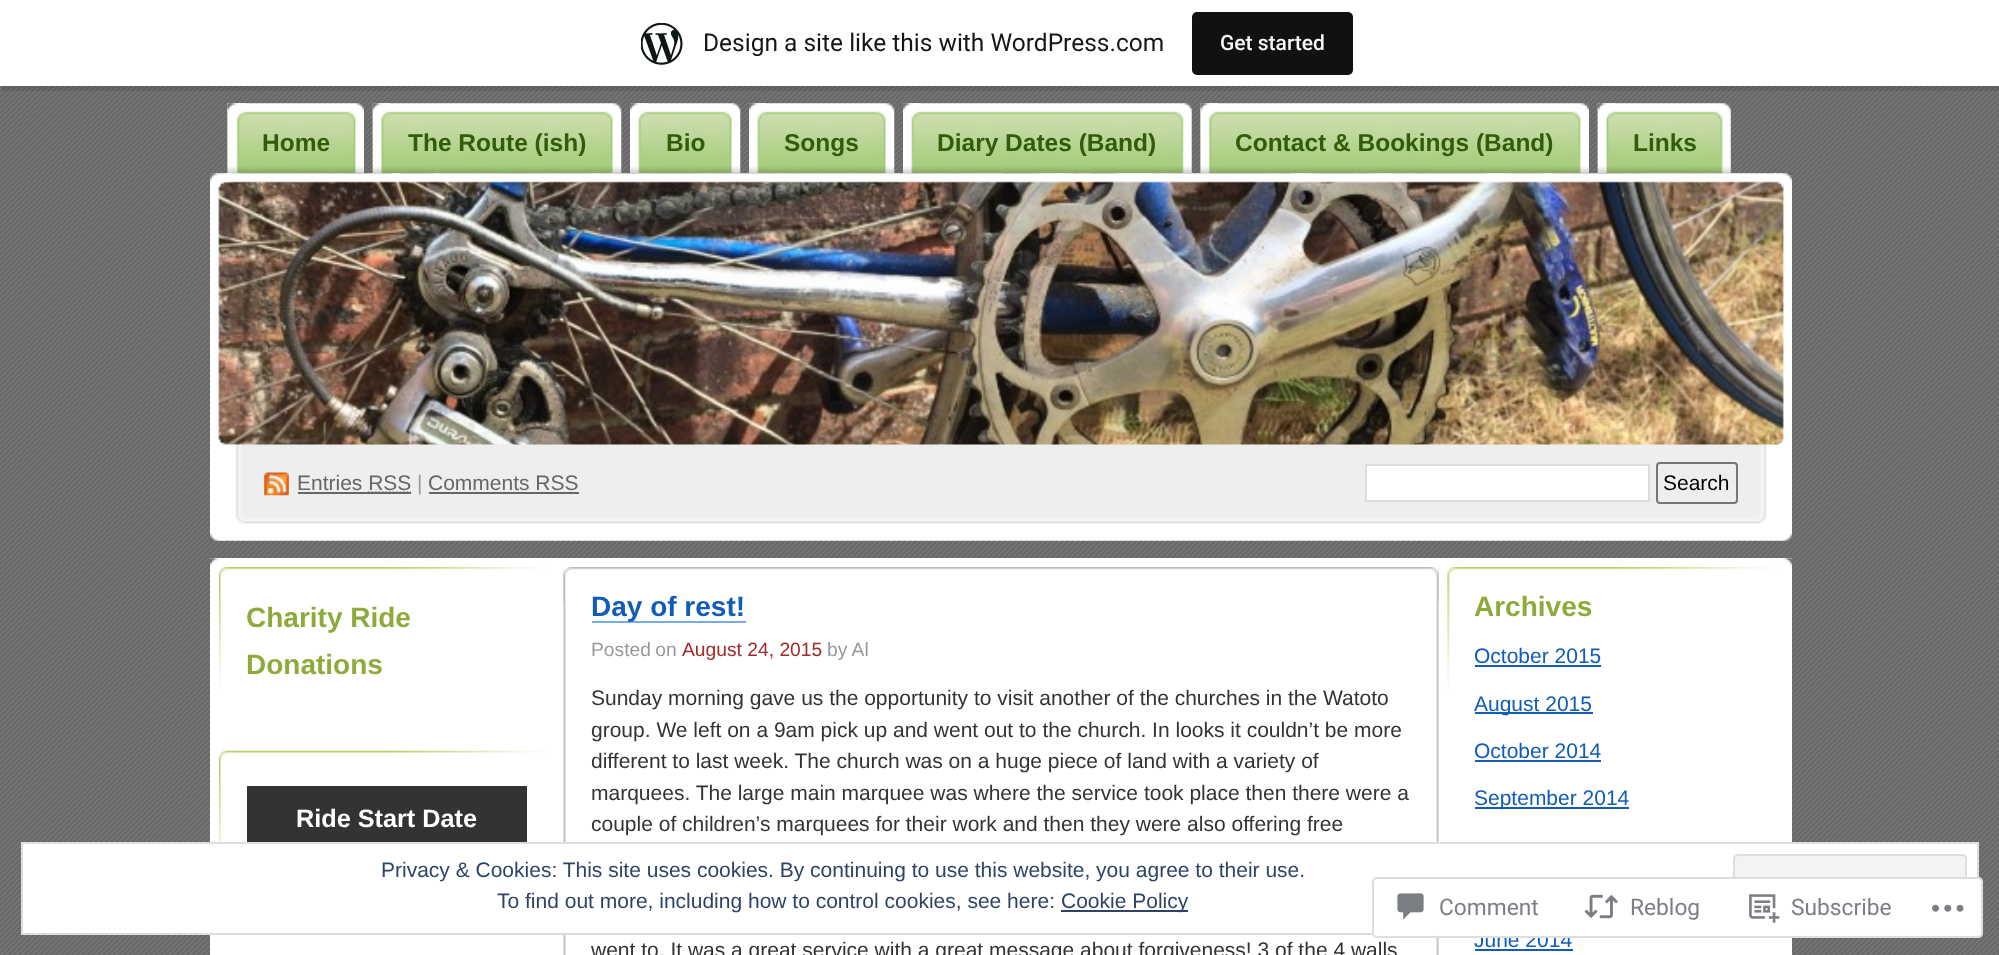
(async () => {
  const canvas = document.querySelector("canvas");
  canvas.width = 1999;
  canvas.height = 955;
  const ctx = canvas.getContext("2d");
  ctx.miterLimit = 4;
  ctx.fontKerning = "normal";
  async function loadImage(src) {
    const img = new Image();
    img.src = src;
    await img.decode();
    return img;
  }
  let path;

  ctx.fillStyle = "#ffffff";
  ctx.fillRect(0, 0, 1999, 955);
  ctx.drawImage(await loadImage("img/1.png"), 0, 86, 1999, 869);
  ctx.fillStyle = "rgba(0, 0, 0, 0.05)";
  ctx.filter = "blur(2px)";
  ctx.beginPath();
  ctx.rect(0, 2, 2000, 86);
  ctx.fill();
  ctx.filter = "none";
  ctx.fillStyle = "rgba(0, 0, 0, 0.08)";
  path = new Path2D("M2 86V91H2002V5H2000V86Z");
  ctx.fill(path);
  ctx.fillStyle = "#ffffff";
  ctx.fillRect(0, 0, 1999, 86);
  ctx.drawImage(await loadImage("img/2.png"), 641, 23, 42, 42);
  ctx.fillStyle = "#111111";
  ctx.beginPath();
  ctx.roundRect(1192, 12, 161, 63, 5);
  ctx.fill();
  ctx.drawImage(await loadImage("img/3.png"), 227, 103, 137, 71);
  ctx.drawImage(await loadImage("img/4.png"), 227, 103, 20, 71);
  ctx.drawImage(await loadImage("img/5.png"), 372, 103, 250, 71);
  ctx.drawImage(await loadImage("img/6.png"), 372, 103, 19, 71);
  ctx.drawImage(await loadImage("img/7.png"), 630, 103, 111, 71);
  ctx.drawImage(await loadImage("img/8.png"), 630, 103, 18, 71);
  ctx.drawImage(await loadImage("img/9.png"), 749, 103, 146, 71);
  ctx.drawImage(await loadImage("img/10.png"), 749, 103, 18, 71);
  ctx.drawImage(await loadImage("img/11.png"), 903, 103, 289, 71);
  ctx.drawImage(await loadImage("img/12.png"), 903, 103, 18, 71);
  ctx.drawImage(await loadImage("img/13.png"), 1200, 103, 389, 71);
  ctx.drawImage(await loadImage("img/14.png"), 1200, 103, 18, 71);
  ctx.drawImage(await loadImage("img/15.png"), 1597, 103, 134, 71);
  ctx.drawImage(await loadImage("img/16.png"), 1597, 103, 19, 71);
  ctx.drawImage(await loadImage("img/17.png"), 210, 173, 1582, 272);
  ctx.drawImage(await loadImage("img/18.png"), 210, 173, 1582, 368);
  ctx.drawImage(await loadImage("img/19.png"), 264, 472, 25, 24);
  ctx.fillStyle = "#666666";
  ctx.fillRect(298, 492, 70, 2);
  path = new Path2D("M368 492.5H411");
  ctx.strokeStyle = "#666666";
  ctx.lineWidth = 1.8;
  ctx.setLineDash([1.75, 1.75]);
  ctx.stroke(path);
  ctx.fillRect(368, 492, 43, 2);
  ctx.fillRect(429, 492, 150, 2);
  ctx.fillStyle = "#ffffff";
  ctx.beginPath();
  ctx.rect(1366, 465, 283, 36);
  ctx.fill();
  ctx.strokeStyle = "#dddddd";
  ctx.lineWidth = 2;
  ctx.setLineDash([]);
  ctx.stroke();
  ctx.beginPath();
  ctx.roundRect(1657, 463, 80, 40, 3);
  ctx.strokeStyle = "#767676";
  ctx.stroke();
  ctx.fillRect(210, 558, 1582, 397);
  ctx.drawImage(await loadImage("img/20.png"), 210, 558, 1582, 9);
  ctx.drawImage(await loadImage("img/21.png"), 218, 567, 331, 127);
  ctx.drawImage(await loadImage("img/22.png"), 218, 750, 331, 92);
  ctx.fillStyle = "#333333";
  ctx.fillRect(247, 786, 280, 56);
  ctx.drawImage(await loadImage("img/23.png"), 563, 567, 876, 388);
  ctx.drawImage(await loadImage("img/24.png"), 563, 567, 876, 35);
  ctx.fillStyle = "#75abea";
  ctx.fillRect(592, 621, 154, 2);
  ctx.drawImage(await loadImage("img/25.png"), 1447, 567, 330, 125);
  for (const [x, y, w, h, color] of [
    [1475, 665, 126, 2, "#105cb6"],
    [1475, 712, 118, 2, "#105cb6"],
    [1475, 760, 126, 2, "#105cb6"],
    [1475, 807, 154, 2, "#105cb6"],
    [1475, 949, 98, 2, "#105cb6"],
  ]) {
    ctx.fillStyle = color;
    ctx.fillRect(x, y, w, h);
  }
  ctx.font = "24.5px Roboto";
  ctx.fillStyle = "#171717";
  ctx.fillText("Design a site like this with WordPress.com", 703, 51);
  ctx.font = "500 21px Roboto";
  ctx.fillStyle = "#f6f7f7";
  ctx.fillText("Get started", 1220, 50);
  ctx.font = "bold 24.5px Liberation Sans";
  ctx.fillStyle = "#325b0a";
  for (const [text, x, y] of [
    ["Home", 262, 151],
    ["The Route (ish)", 408, 151],
    ["Bio", 666, 151],
    ["Songs", 784, 151],
    ["Diary Dates (Band)", 937, 151],
    ["Contact & Bookings (Band)", 1235, 151],
    ["Links", 1633, 151],
  ]) {
    ctx.fillText(text, x, y);
  }
  ctx.font = "21px Liberation Sans";
  ctx.fillStyle = "#666666";
  ctx.fillText("Entries RSS", 297, 490);
  ctx.fillStyle = "#999999";
  ctx.fillText("|", 417, 490);
  ctx.fillStyle = "#666666";
  ctx.fillText("Comments RSS", 428, 490);
  ctx.fillStyle = "#000000";
  ctx.fillText("Search", 1663, 490);
  ctx.font = "bold 28px Liberation Sans";
  ctx.fillStyle = "#8dab3b";
  ctx.fillText("Charity Ride", 246, 627);
  ctx.fillText("Donations", 246, 674);
  ctx.font = "bold 25.25px Liberation Sans";
  ctx.fillStyle = "#ffffff";
  ctx.fillText("Ride Start Date", 296, 827);
  ctx.font = "bold 28px Liberation Sans";
  ctx.fillStyle = "#105cb6";
  ctx.fillText("Day of rest!", 591, 616);
  ctx.wordSpacing = "-1px";
  ctx.font = "19.25px Liberation Sans";
  ctx.fillStyle = "#999999";
  ctx.fillText("Posted on", 591, 656);
  ctx.wordSpacing = "0px";
  ctx.fillStyle = "#a12a2a";
  ctx.fillText("August 24, 2015", 682, 656);
  ctx.fillStyle = "#999999";
  ctx.fillText("by Al", 827, 656);
  ctx.font = "21px Liberation Sans";
  ctx.fillStyle = "#333333";
  for (const [text, x, y] of [
    ["Sunday morning gave us the opportunity to visit another of the churches in the Watoto", 591, 705],
    ["group. We left on a 9am pick up and went out to the church. In looks it couldn’t be more", 591, 737],
    ["different to last week. The church was on a huge piece of land with a variety of", 591, 768],
    ["marquees. The large main marquee was where the service took place then there were a", 591, 800],
    ["couple of children’s marquees for their work and then they were also offering free", 591, 831],
    ["went to. It was a great service with a great message about forgiveness! 3 of the 4 walls", 591, 957],
  ]) {
    ctx.fillText(text, x, y);
  }
  ctx.font = "bold 28px Liberation Sans";
  ctx.fillStyle = "#8dab3b";
  ctx.fillText("Archives", 1474, 616);
  ctx.font = "21px Liberation Sans";
  ctx.fillStyle = "#105cb6";
  for (const [text, x, y] of [
    ["October 2015", 1474, 663],
    ["August 2015", 1474, 711],
    ["October 2014", 1474, 758],
    ["September 2014", 1474, 805],
    ["June 2014", 1474, 947],
  ]) {
    ctx.fillText(text, x, y);
  }
  ctx.fillStyle = "#ffffff";
  ctx.beginPath();
  ctx.rect(22, 843, 1956, 91);
  ctx.fill();
  ctx.strokeStyle = "#dedede";
  ctx.stroke();
  ctx.fillStyle = "#2e4467";
  ctx.fillText("Privacy & Cookies: This site uses cookies. By continuing to use this website, you agree to their use.", 381, 877);
  ctx.fillStyle = "#f3f3f3";
  ctx.beginPath();
  ctx.roundRect(1734, 855, 232, 66, 4);
  ctx.fill();
  ctx.stroke();
  ctx.fillStyle = "#2e4467";
  ctx.fillText("To find out more, including how to control cookies, see here:", 497, 908);
  ctx.fillRect(1061, 910, 127, 2);
  ctx.fillText("Cookie Policy", 1061, 908);
  ctx.fillStyle = "rgba(255, 255, 255, 0.98)";
  ctx.beginPath();
  ctx.roundRect(1372, 877, 611, 61, 5);
  ctx.fill();
  ctx.beginPath();
  ctx.roundRect(1373, 878, 609, 59, 4);
  ctx.strokeStyle = "rgba(220, 220, 222, 0.98)";
  ctx.stroke();
  ctx.drawImage(await loadImage("img/26.png"), 1397, 893, 27, 27);
  ctx.font = "22.75px Roboto";
  ctx.fillStyle = "#7b7f85";
  ctx.fillText("Comment", 1439, 915);
  ctx.drawImage(await loadImage("img/27.png"), 1584, 894, 34, 25);
  ctx.fillText("Reblog", 1630, 915);
  ctx.drawImage(await loadImage("img/28.png"), 1749, 894, 31, 29);
  ctx.fillText("Subscribe", 1791, 915);
  ctx.drawImage(await loadImage("img/29.png"), 1932, 904, 32, 8);
})();
